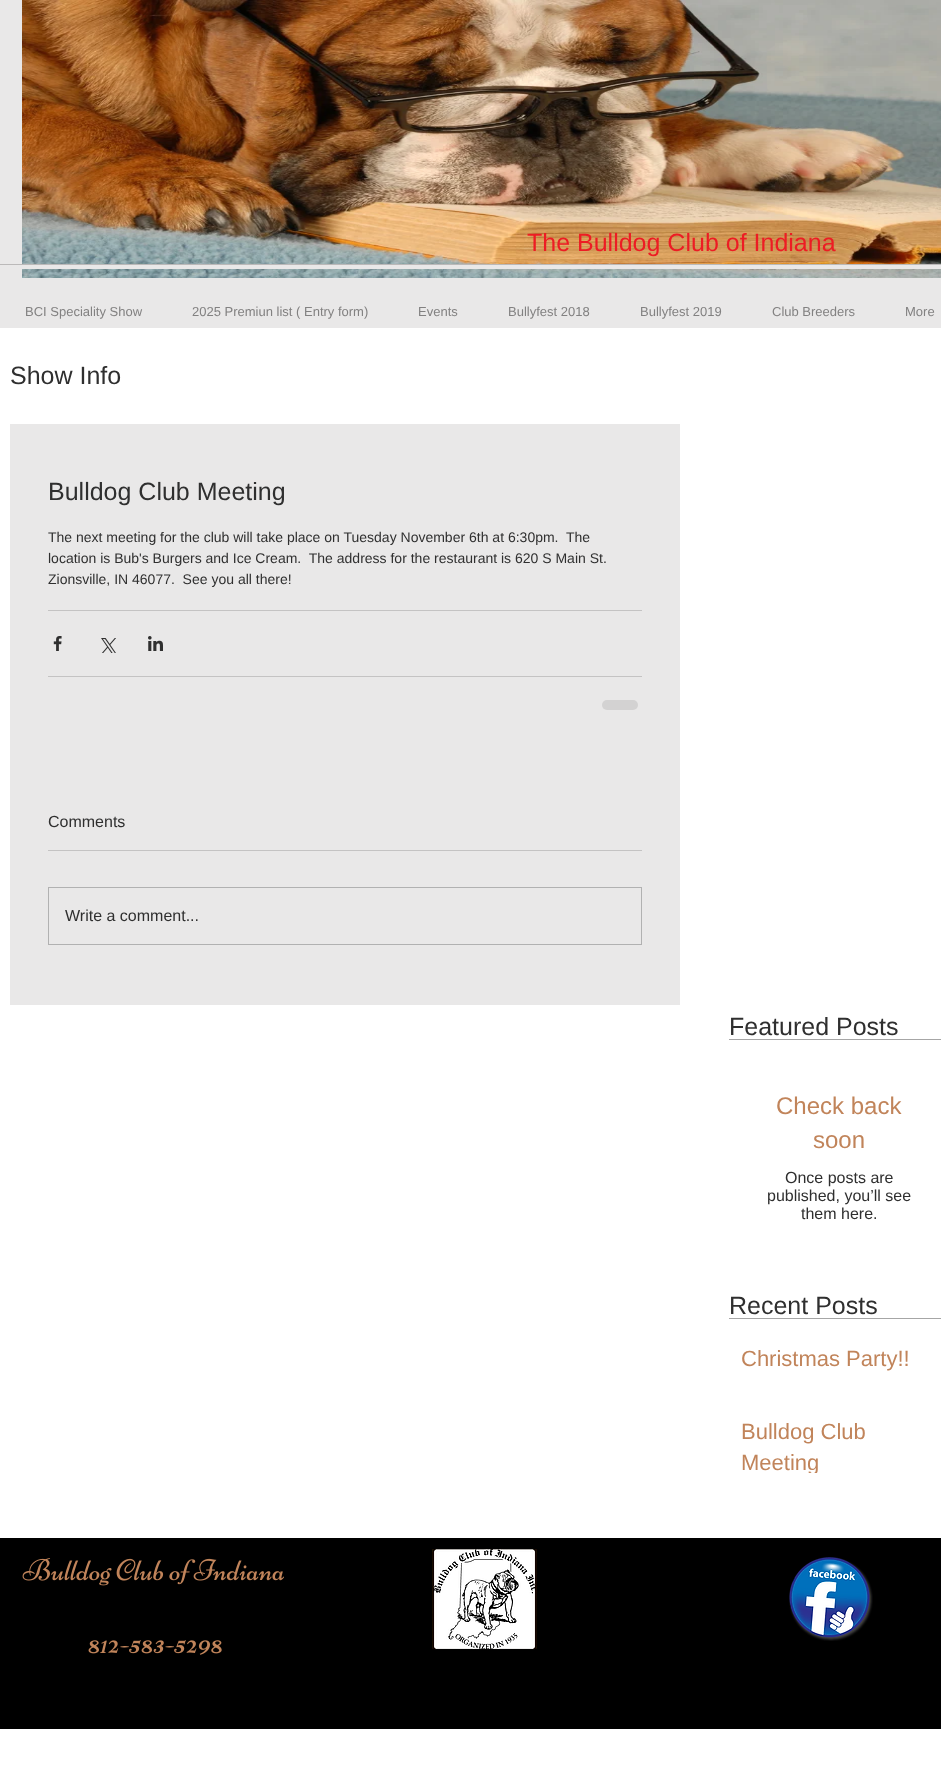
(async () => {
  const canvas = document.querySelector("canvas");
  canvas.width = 941;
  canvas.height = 1790;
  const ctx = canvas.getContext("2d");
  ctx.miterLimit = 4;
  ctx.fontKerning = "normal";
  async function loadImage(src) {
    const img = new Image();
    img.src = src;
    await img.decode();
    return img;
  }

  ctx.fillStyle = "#ffffff";
  ctx.fillRect(0, 0, 941, 1790);
  ctx.fillStyle = "#e9e8e8";
  ctx.fillRect(0, 0, 941, 328);
  ctx.drawImage(await loadImage("img/1.png"), 22, 0, 919, 278);
  for (const [x, y, w, h, color] of [
    [22, 265, 919, 4, "#e9e8e8"],
    [0, 264, 941, 1, "#bbb9b9"],
    [10, 424, 670, 581, "#e9e8e8"],
    [48, 610, 594, 1, "#c4c3c3"],
  ]) {
    ctx.fillStyle = color;
    ctx.fillRect(x, y, w, h);
  }
  ctx.drawImage(await loadImage("img/2.png"), 53, 636, 9, 15);
  ctx.drawImage(await loadImage("img/3.png"), 101, 638, 15, 15);
  ctx.drawImage(await loadImage("img/4.png"), 148, 636, 15, 15);
  ctx.fillRect(48, 676, 594, 1);
  ctx.fillStyle = "#d3d2d2";
  ctx.beginPath();
  ctx.roundRect(602, 700, 36, 10, 5);
  ctx.fill();
  ctx.fillStyle = "#c4c3c3";
  ctx.fillRect(48, 850, 594, 1);
  ctx.strokeStyle = "#b1b1b1";
  ctx.strokeRect(48.5, 887.5, 593, 57);
  for (const [x, y, w, h, color] of [
    [729, 1039, 212, 1, "#a6a6a6"],
    [729, 1318, 212, 1, "#a6a6a6"],
    [0, 1538, 941, 191, "#000000"],
  ]) {
    ctx.fillStyle = color;
    ctx.fillRect(x, y, w, h);
  }
  ctx.drawImage(await loadImage("img/5.png"), 22, 1558, 262, 28);
  ctx.drawImage(await loadImage("img/6.png"), 432, 1549, 105, 100);
  ctx.drawImage(await loadImage("img/7.png"), 789, 1557, 84, 84);
  ctx.drawImage(await loadImage("img/8.png"), 88, 1640, 134, 15);
  ctx.font = "25px Liberation Sans";
  ctx.fillStyle = "#ed1c24";
  ctx.fillText("The Bulldog Club of Indiana", 527, 251);
  ctx.font = "13px Liberation Sans";
  ctx.fillStyle = "#828181";
  for (const [text, x, y] of [
    ["BCI Speciality Show", 25, 316],
    ["2025 Premiun list ( Entry form)", 192, 316],
    ["Events", 418, 316],
    ["Bullyfest 2018", 508, 316],
    ["Bullyfest 2019", 640, 316],
    ["Club Breeders", 772, 316],
    ["More", 905, 316],
  ]) {
    ctx.fillText(text, x, y);
  }
  ctx.font = "25px Liberation Sans";
  ctx.fillStyle = "#2f2f2f";
  ctx.fillText("Show Info", 10, 384);
  ctx.fillText("Bulldog Club Meeting", 48, 500);
  ctx.font = "14px Liberation Sans";
  for (const [text, x, y] of [
    ["The next meeting for the club will take place on Tuesday November 6th at 6:30pm.  The", 48, 542],
    ["location is Bub's Burgers and Ice Cream.  The address for the restaurant is 620 S Main St.", 48, 563],
    ["Zionsville, IN 46077.  See you all there!", 48, 584],
  ]) {
    ctx.fillText(text, x, y);
  }
  ctx.font = "16px Liberation Sans";
  ctx.fillText("Comments", 48, 827);
  ctx.fillText("Write a comment...", 65, 921);
  ctx.font = "25px Liberation Sans";
  ctx.fillText("Featured Posts", 729, 1035);
  ctx.font = "24px Liberation Sans";
  ctx.fillStyle = "#c1845a";
  ctx.fillText("Check back", 776, 1114);
  ctx.fillText("soon", 813, 1148);
  ctx.font = "16px Liberation Sans";
  ctx.fillStyle = "#2f2f2f";
  for (const [text, x, y] of [
    ["Once posts are", 785, 1183],
    ["published, you’ll see", 767, 1201],
    ["them here.", 801, 1219],
  ]) {
    ctx.fillText(text, x, y);
  }
  ctx.font = "25px Liberation Sans";
  ctx.fillText("Recent Posts", 729, 1314);
  ctx.font = "22px Liberation Sans";
  ctx.fillStyle = "#c1845a";
  ctx.fillText("Christmas Party!!", 741, 1366);
  ctx.fillText("Bulldog Club", 741, 1439);
  ctx.save();
  ctx.beginPath();
  ctx.rect(741, 1417, 182, 56);
  ctx.clip();
  ctx.fillText("Meeting", 741, 1470);
  ctx.restore();
})();
